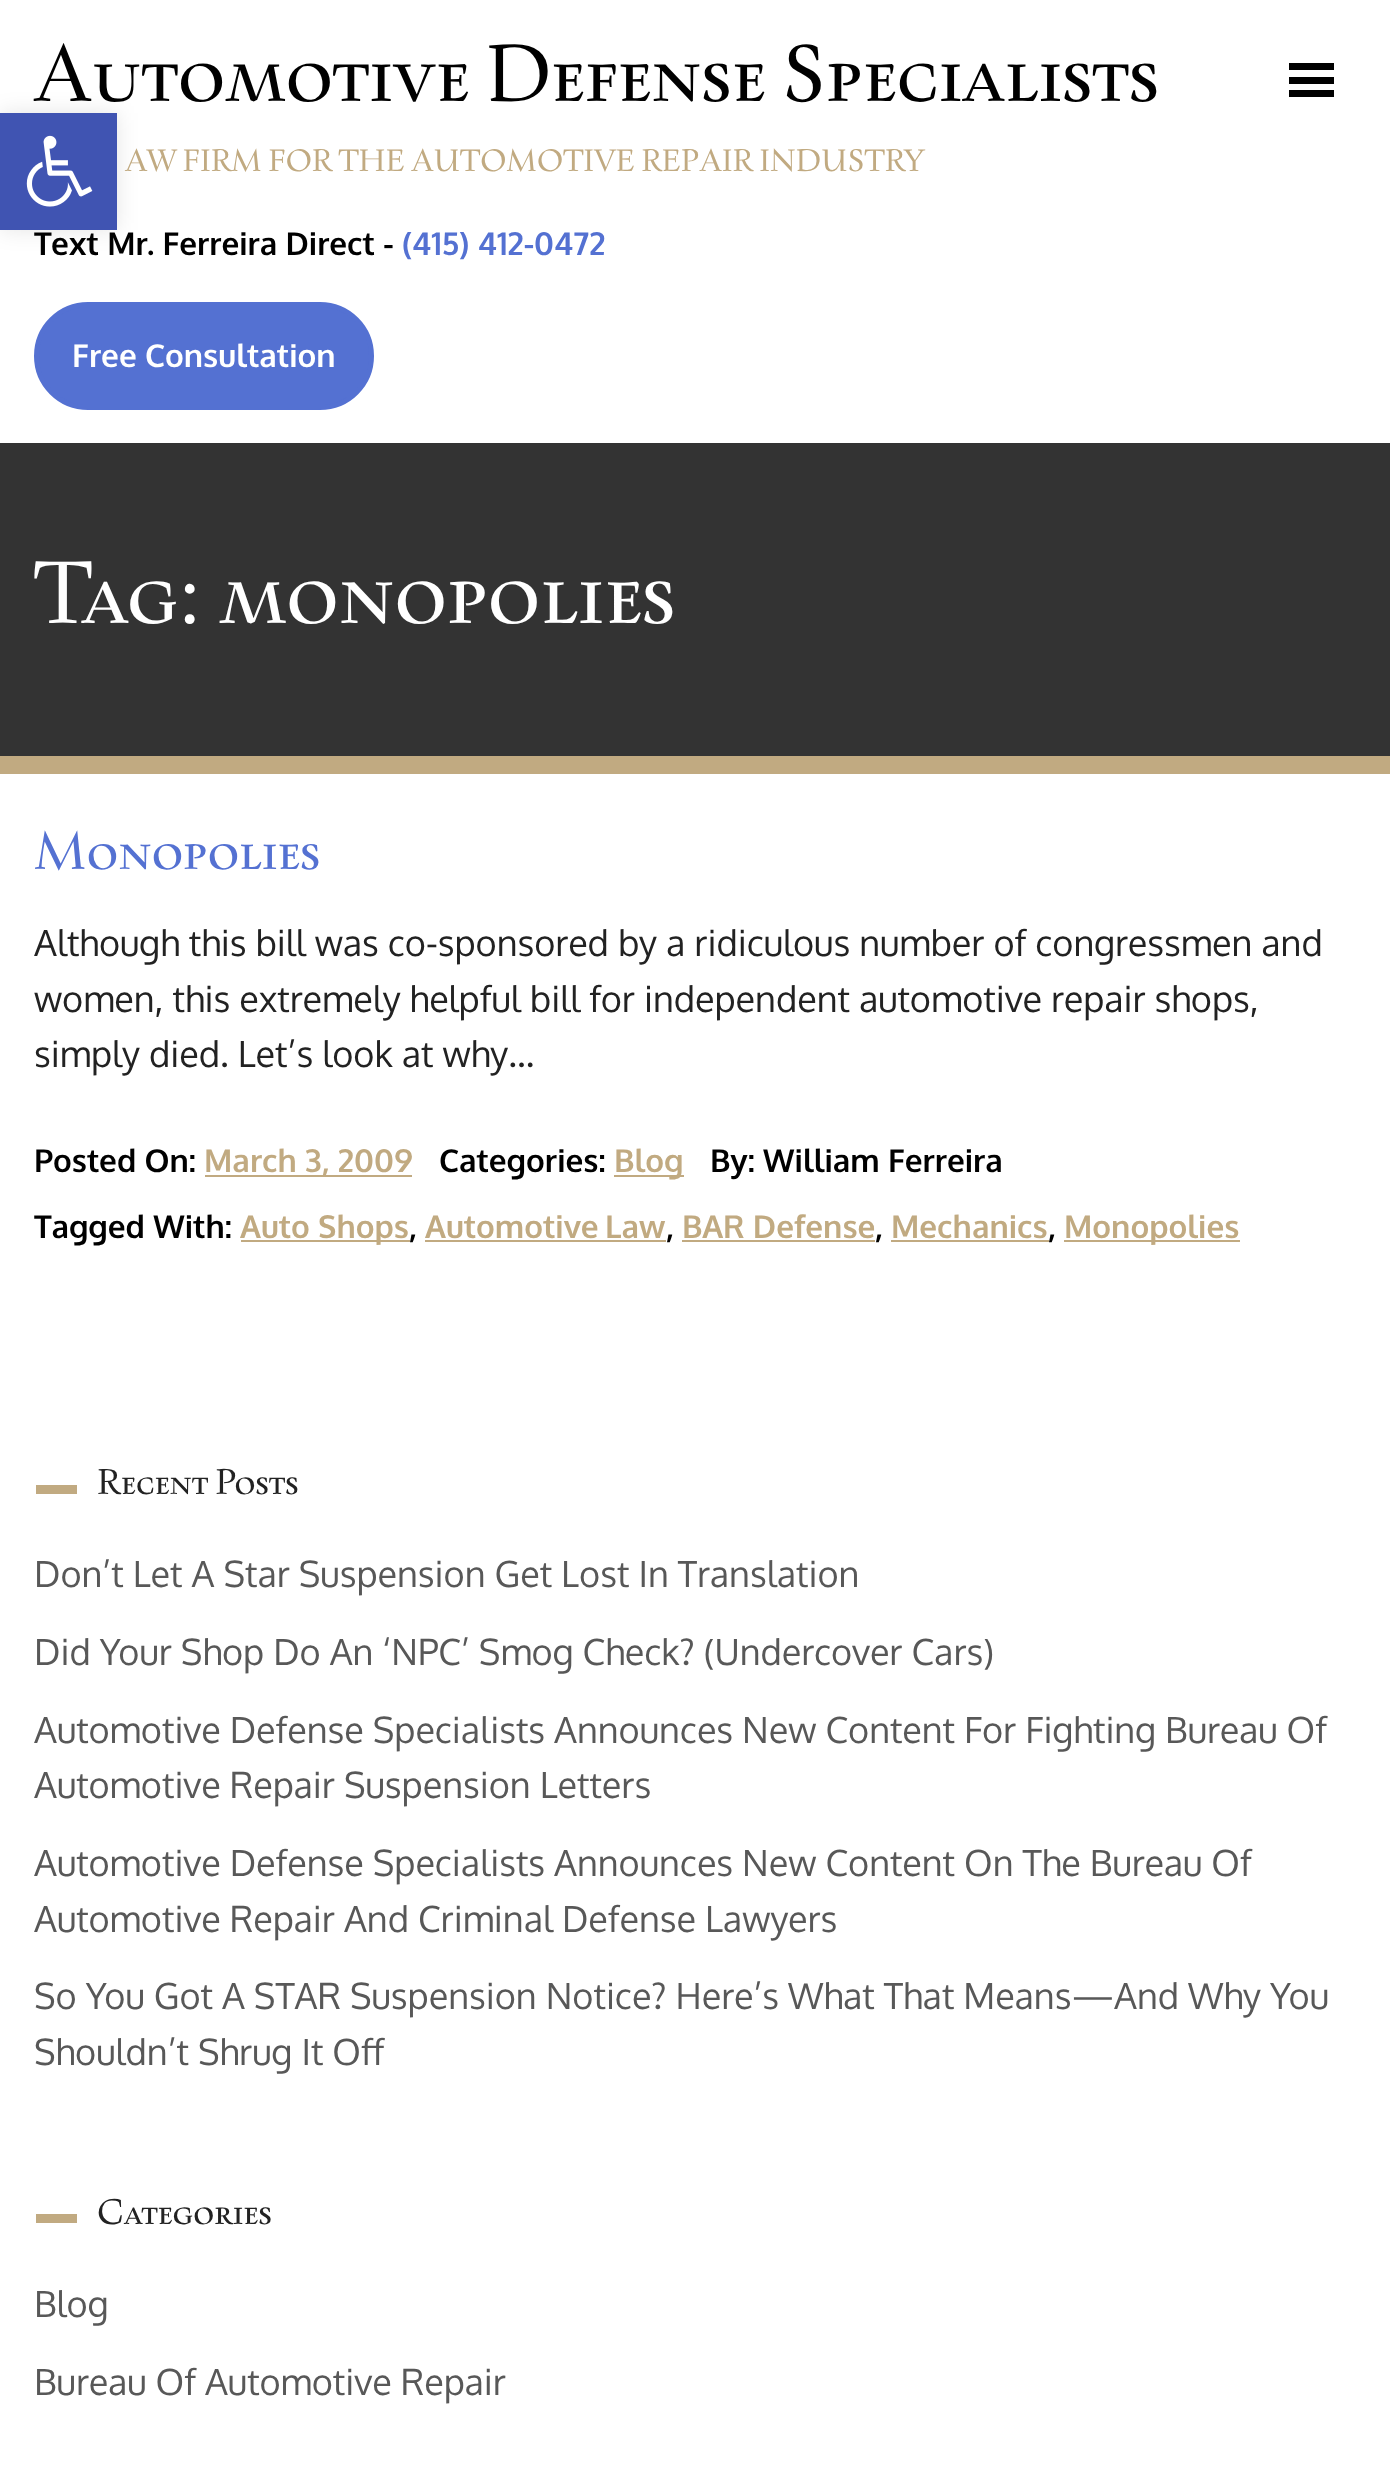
(async () => {
  const canvas = document.querySelector("canvas");
  canvas.width = 1390;
  canvas.height = 2465;
  const ctx = canvas.getContext("2d");
  ctx.miterLimit = 4;
  ctx.fontKerning = "normal";
  async function loadImage(src) {
    const img = new Image();
    img.src = src;
    await img.decode();
    return img;
  }

  ctx.fillStyle = "#ffffff";
  ctx.fillRect(0, 0, 1390, 2465);
  for (const [x, y, w, h, color] of [
    [1289, 77, 45, 7, "#000000"],
    [1289, 63, 45, 7, "#000000"],
    [1289, 90, 45, 7, "#000000"],
  ]) {
    ctx.fillStyle = color;
    ctx.fillRect(x, y, w, h);
  }
  ctx.fillStyle = "#5471d2";
  ctx.beginPath();
  ctx.roundRect(36.5, 304.5, 335, 103, 51.5);
  ctx.fill();
  ctx.strokeStyle = "#5471d2";
  ctx.lineWidth = 5;
  ctx.stroke();
  ctx.fillStyle = "rgba(0, 0, 0, 0.1)";
  ctx.filter = "blur(11px)";
  ctx.beginPath();
  ctx.rect(0, 113, 117, 117);
  ctx.fill();
  ctx.filter = "none";
  ctx.fillStyle = "#4054b2";
  ctx.fillRect(0, 113, 117, 117);
  ctx.drawImage(await loadImage("img/1.png"), 26, 135, 67, 72);
  for (const [x, y, w, h, color] of [
    [0, 443, 1390, 313, "#333333"],
    [0, 756, 1390, 18, "#c1aa81"],
    [205, 1175, 207, 2, "#c1aa81"],
    [614, 1175, 70, 2, "#c1aa81"],
    [241, 1240, 169, 2, "#c1aa81"],
    [425, 1240, 241, 2, "#c1aa81"],
    [682, 1240, 193, 2, "#c1aa81"],
    [891, 1240, 158, 2, "#c1aa81"],
    [1064, 1240, 176, 2, "#c1aa81"],
    [36, 1485, 41, 9, "#c1aa81"],
    [36, 2214, 41, 9, "#c1aa81"],
  ]) {
    ctx.fillStyle = color;
    ctx.fillRect(x, y, w, h);
  }
  ctx.font = "81px 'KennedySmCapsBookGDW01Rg'";
  ctx.fillStyle = "#000000";
  ctx.fillText("Automotive Defense Specialists", 34, 101);
  ctx.font = "31.5px 'KennedySmCapsBookGDW01Rg'";
  ctx.fillStyle = "#c1aa81";
  ctx.fillText("AW FIRM FOR THE AUTOMOTIVE REPAIR INDUSTRY", 125, 171);
  ctx.font = "bold 31.5px Oxygen";
  ctx.fillStyle = "#000000";
  ctx.fillText("Text Mr. Ferreira Direct -", 34, 255);
  ctx.fillStyle = "#5471d2";
  ctx.fillText("(415) 412-0472", 402, 255);
  ctx.fillStyle = "#ffffff";
  ctx.fillText("Free Consultation", 72, 367);
  ctx.font = "90px 'KennedySmCapsBookGDW01Rg'";
  ctx.fillText("Tag: monopolies", 34, 623);
  ctx.font = "54px 'KennedySmCapsBookGDW01Rg'";
  ctx.fillStyle = "#5471d2";
  ctx.fillText("Monopolies", 34, 869);
  ctx.font = "36px Oxygen";
  ctx.fillStyle = "#222222";
  for (const [text, x, y] of [
    ["Although this bill was co-sponsored by a ridiculous number of congressmen and", 34, 956],
    ["women, this extremely helpful bill for independent automotive repair shops,", 34, 1012],
    ["simply died. Let’s look at why…", 34, 1067],
  ]) {
    ctx.fillText(text, x, y);
  }
  ctx.font = "bold 31.5px Oxygen";
  ctx.fillStyle = "#000000";
  ctx.fillText("Posted On:", 34, 1172);
  ctx.fillStyle = "#c1aa81";
  ctx.fillText("March 3, 2009", 204, 1172);
  ctx.fillStyle = "#000000";
  ctx.fillText("Categories:", 439, 1172);
  ctx.fillStyle = "#c1aa81";
  ctx.fillText("Blog", 614, 1172);
  ctx.fillStyle = "#000000";
  ctx.fillText("By: William Ferreira", 710, 1172);
  ctx.fillText("Tagged With:", 34, 1238);
  ctx.fillStyle = "#c1aa81";
  ctx.fillText("Auto Shops", 240, 1238);
  ctx.fillStyle = "#000000";
  ctx.fillText(",", 409, 1238);
  ctx.wordSpacing = "-2px";
  ctx.fillStyle = "#c1aa81";
  ctx.fillText("Automotive Law", 425, 1238);
  ctx.wordSpacing = "0px";
  ctx.fillStyle = "#000000";
  ctx.fillText(",", 666, 1238);
  ctx.fillStyle = "#c1aa81";
  ctx.fillText("BAR Defense", 682, 1238);
  ctx.fillStyle = "#000000";
  ctx.fillText(",", 875, 1238);
  ctx.fillStyle = "#c1aa81";
  ctx.fillText("Mechanics", 891, 1238);
  ctx.fillStyle = "#000000";
  ctx.fillText(",", 1048, 1238);
  ctx.fillStyle = "#c1aa81";
  ctx.fillText("Monopolies", 1064, 1238);
  ctx.font = "36px 'KennedySmCapsBookGDW01Rg'";
  ctx.fillStyle = "#222222";
  ctx.fillText("Recent Posts", 97, 1494);
  ctx.font = "36px Oxygen";
  ctx.fillStyle = "#585858";
  for (const [text, x, y] of [
    ["Don’t Let A Star Suspension Get Lost In Translation", 34, 1587],
    ["Did Your Shop Do An ‘NPC’ Smog Check? (Undercover Cars)", 34, 1665],
    ["Automotive Defense Specialists Announces New Content For Fighting Bureau Of", 34, 1743],
    ["Automotive Repair Suspension Letters", 34, 1798],
    ["Automotive Defense Specialists Announces New Content On The Bureau Of", 34, 1876],
    ["Automotive Repair And Criminal Defense Lawyers", 34, 1932],
    ["So You Got A STAR Suspension Notice? Here’s What That Means—And Why You", 34, 2009],
    ["Shouldn’t Shrug It Off", 34, 2065],
  ]) {
    ctx.fillText(text, x, y);
  }
  ctx.font = "36px 'KennedySmCapsBookGDW01Rg'";
  ctx.fillStyle = "#222222";
  ctx.fillText("Categories", 97, 2224);
  ctx.font = "36px Oxygen";
  ctx.fillStyle = "#585858";
  ctx.fillText("Blog", 34, 2317);
  ctx.fillText("Bureau Of Automotive Repair", 34, 2395);
})();
